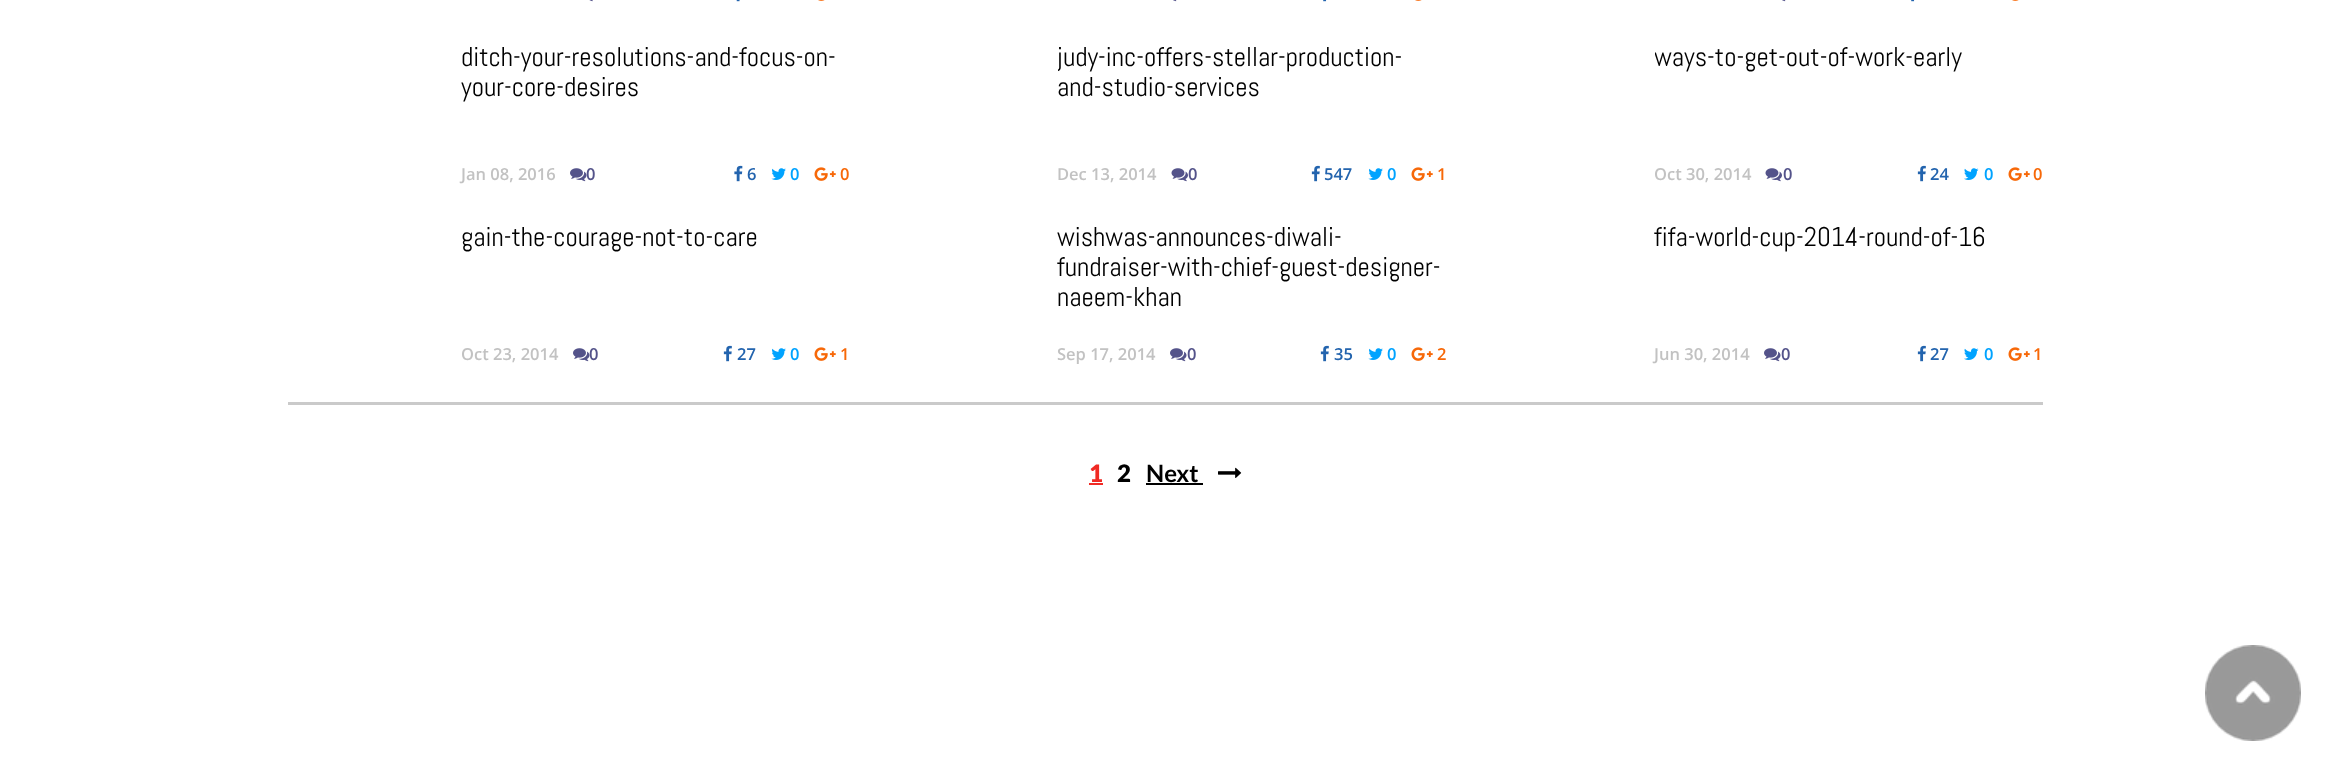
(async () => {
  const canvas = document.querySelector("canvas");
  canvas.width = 2330;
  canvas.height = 771;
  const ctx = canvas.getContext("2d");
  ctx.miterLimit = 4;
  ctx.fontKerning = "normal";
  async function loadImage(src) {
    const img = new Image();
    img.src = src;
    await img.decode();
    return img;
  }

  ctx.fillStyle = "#ffffff";
  ctx.fillRect(0, 0, 2330, 771);
  ctx.fillStyle = "#cacaca";
  ctx.fillRect(288, 402, 1755, 3);
  ctx.drawImage(await loadImage("img/1.png"), 589, 0, 4, 2);
  ctx.drawImage(await loadImage("img/2.png"), 736, 0, 4, 2);
  ctx.drawImage(await loadImage("img/3.png"), 818, 0, 7, 1);
  ctx.drawImage(await loadImage("img/4.png"), 1173, 0, 4, 2);
  ctx.drawImage(await loadImage("img/5.png"), 1323, 0, 4, 2);
  ctx.drawImage(await loadImage("img/3.png"), 1415, 0, 7, 1);
  ctx.drawImage(await loadImage("img/4.png"), 1782, 0, 4, 2);
  ctx.drawImage(await loadImage("img/5.png"), 1911, 0, 4, 2);
  ctx.drawImage(await loadImage("img/3.png"), 2012, 0, 7, 1);
  ctx.drawImage(await loadImage("img/6.png"), 570, 168, 17, 14);
  ctx.drawImage(await loadImage("img/7.png"), 734, 165, 9, 17);
  ctx.drawImage(await loadImage("img/8.png"), 771, 168, 15, 12);
  ctx.drawImage(await loadImage("img/9.png"), 814, 167, 22, 14);
  ctx.drawImage(await loadImage("img/10.png"), 1171, 168, 17, 14);
  ctx.drawImage(await loadImage("img/11.png"), 1311, 165, 9, 17);
  ctx.drawImage(await loadImage("img/8.png"), 1368, 168, 15, 12);
  ctx.drawImage(await loadImage("img/9.png"), 1411, 167, 22, 14);
  ctx.drawImage(await loadImage("img/10.png"), 1765, 168, 17, 14);
  ctx.drawImage(await loadImage("img/11.png"), 1917, 165, 9, 17);
  ctx.drawImage(await loadImage("img/12.png"), 1964, 168, 15, 12);
  ctx.drawImage(await loadImage("img/9.png"), 2008, 167, 22, 14);
  ctx.drawImage(await loadImage("img/6.png"), 573, 348, 17, 14);
  ctx.drawImage(await loadImage("img/11.png"), 723, 345, 9, 17);
  ctx.drawImage(await loadImage("img/8.png"), 771, 348, 15, 12);
  ctx.drawImage(await loadImage("img/9.png"), 814, 347, 22, 14);
  ctx.drawImage(await loadImage("img/6.png"), 1170, 348, 17, 14);
  ctx.drawImage(await loadImage("img/11.png"), 1320, 345, 9, 17);
  ctx.drawImage(await loadImage("img/8.png"), 1368, 348, 15, 12);
  ctx.drawImage(await loadImage("img/9.png"), 1411, 347, 22, 14);
  ctx.drawImage(await loadImage("img/6.png"), 1764, 348, 17, 14);
  ctx.drawImage(await loadImage("img/11.png"), 1917, 345, 9, 17);
  ctx.drawImage(await loadImage("img/12.png"), 1964, 348, 15, 12);
  ctx.drawImage(await loadImage("img/9.png"), 2008, 347, 22, 14);
  ctx.fillStyle = "#f02a24";
  ctx.fillRect(1089, 483, 14, 2);
  ctx.fillStyle = "#000000";
  ctx.fillRect(1146, 483, 57, 2);
  ctx.drawImage(await loadImage("img/13.png"), 1218, 467, 24, 11);
  ctx.drawImage(await loadImage("img/14.png"), 2205, 645, 96, 96);
  ctx.font = "27px Abel";
  ctx.fillText("ditch-your-resolutions-and-focus-on-", 461, 66);
  ctx.fillText("your-core-desires", 461, 96);
  ctx.font = "600 16.5px Open Sans";
  ctx.fillStyle = "#c2c2c2";
  ctx.fillText("Jan 08, 2016", 461, 180);
  ctx.fillStyle = "#54538a";
  ctx.fillText("0", 586, 180);
  ctx.fillStyle = "#2364ae";
  ctx.fillText("6", 747, 180);
  ctx.fillStyle = "#00a3ff";
  ctx.fillText("0", 790, 180);
  ctx.fillStyle = "#f76808";
  ctx.fillText("0", 840, 180);
  ctx.save();
  ctx.beginPath();
  ctx.rect(1058, 42, 388, 60);
  ctx.clip();
  ctx.font = "27px Abel";
  ctx.fillStyle = "#000000";
  ctx.fillText("judy-inc-offers-stellar-production-", 1057, 66);
  ctx.restore();
  ctx.font = "27px Abel";
  ctx.fillStyle = "#000000";
  ctx.fillText("and-studio-services", 1057, 96);
  ctx.font = "600 16.5px Open Sans";
  ctx.fillStyle = "#c2c2c2";
  ctx.fillText("Dec 13, 2014", 1057, 180);
  ctx.fillStyle = "#54538a";
  ctx.fillText("0", 1188, 180);
  ctx.fillStyle = "#2364ae";
  ctx.fillText("547", 1324, 180);
  ctx.fillStyle = "#00a3ff";
  ctx.fillText("0", 1387, 180);
  ctx.fillStyle = "#f76808";
  ctx.fillText("1", 1437, 180);
  ctx.save();
  ctx.beginPath();
  ctx.rect(1655, 42, 388, 30);
  ctx.clip();
  ctx.font = "27px Abel";
  ctx.fillStyle = "#000000";
  ctx.fillText("ways-to-get-out-of-work-early", 1654, 66);
  ctx.restore();
  ctx.fillStyle = "#c2c2c2";
  ctx.fillText("Oct 30, 2014", 1654, 180);
  ctx.fillStyle = "#54538a";
  ctx.fillText("0", 1783, 180);
  ctx.fillStyle = "#2364ae";
  ctx.fillText("24", 1930, 180);
  ctx.fillStyle = "#00a3ff";
  ctx.fillText("0", 1984, 180);
  ctx.fillStyle = "#f76808";
  ctx.fillText("0", 2033, 180);
  ctx.font = "27px Abel";
  ctx.fillStyle = "#000000";
  ctx.fillText("gain-the-courage-not-to-care", 461, 246);
  ctx.font = "600 16.5px Open Sans";
  ctx.fillStyle = "#c2c2c2";
  ctx.fillText("Oct 23, 2014", 461, 360);
  ctx.fillStyle = "#54538a";
  ctx.fillText("0", 589, 360);
  ctx.fillStyle = "#2364ae";
  ctx.fillText("27", 737, 360);
  ctx.fillStyle = "#00a3ff";
  ctx.fillText("0", 790, 360);
  ctx.fillStyle = "#f76808";
  ctx.fillText("1", 840, 360);
  ctx.font = "27px Abel";
  ctx.fillStyle = "#000000";
  for (const [text, x, y] of [
    ["wishwas-announces-diwali-", 1057, 246],
    ["fundraiser-with-chief-guest-designer-", 1057, 276],
    ["naeem-khan", 1057, 306],
  ]) {
    ctx.fillText(text, x, y);
  }
  ctx.font = "600 16.5px Open Sans";
  ctx.fillStyle = "#c2c2c2";
  ctx.fillText("Sep 17, 2014", 1057, 360);
  ctx.fillStyle = "#54538a";
  ctx.fillText("0", 1187, 360);
  ctx.fillStyle = "#2364ae";
  ctx.fillText("35", 1334, 360);
  ctx.fillStyle = "#00a3ff";
  ctx.fillText("0", 1387, 360);
  ctx.fillStyle = "#f76808";
  ctx.fillText("2", 1437, 360);
  ctx.font = "27px Abel";
  ctx.fillStyle = "#000000";
  ctx.fillText("fifa-world-cup-2014-round-of-16", 1654, 246);
  ctx.font = "600 16.5px Open Sans";
  ctx.fillStyle = "#c2c2c2";
  ctx.fillText("Jun 30, 2014", 1654, 360);
  ctx.fillStyle = "#54538a";
  ctx.fillText("0", 1781, 360);
  ctx.fillStyle = "#2364ae";
  ctx.fillText("27", 1930, 360);
  ctx.fillStyle = "#00a3ff";
  ctx.fillText("0", 1984, 360);
  ctx.fillStyle = "#f76808";
  ctx.fillText("1", 2033, 360);
  ctx.font = "900 24px Lato";
  ctx.fillStyle = "#f02a24";
  ctx.fillText("1", 1089, 482);
  ctx.fillStyle = "#000000";
  ctx.fillText("2", 1117, 482);
  ctx.font = "bold 24px Lato";
  ctx.fillText("Next", 1146, 482);
})();
